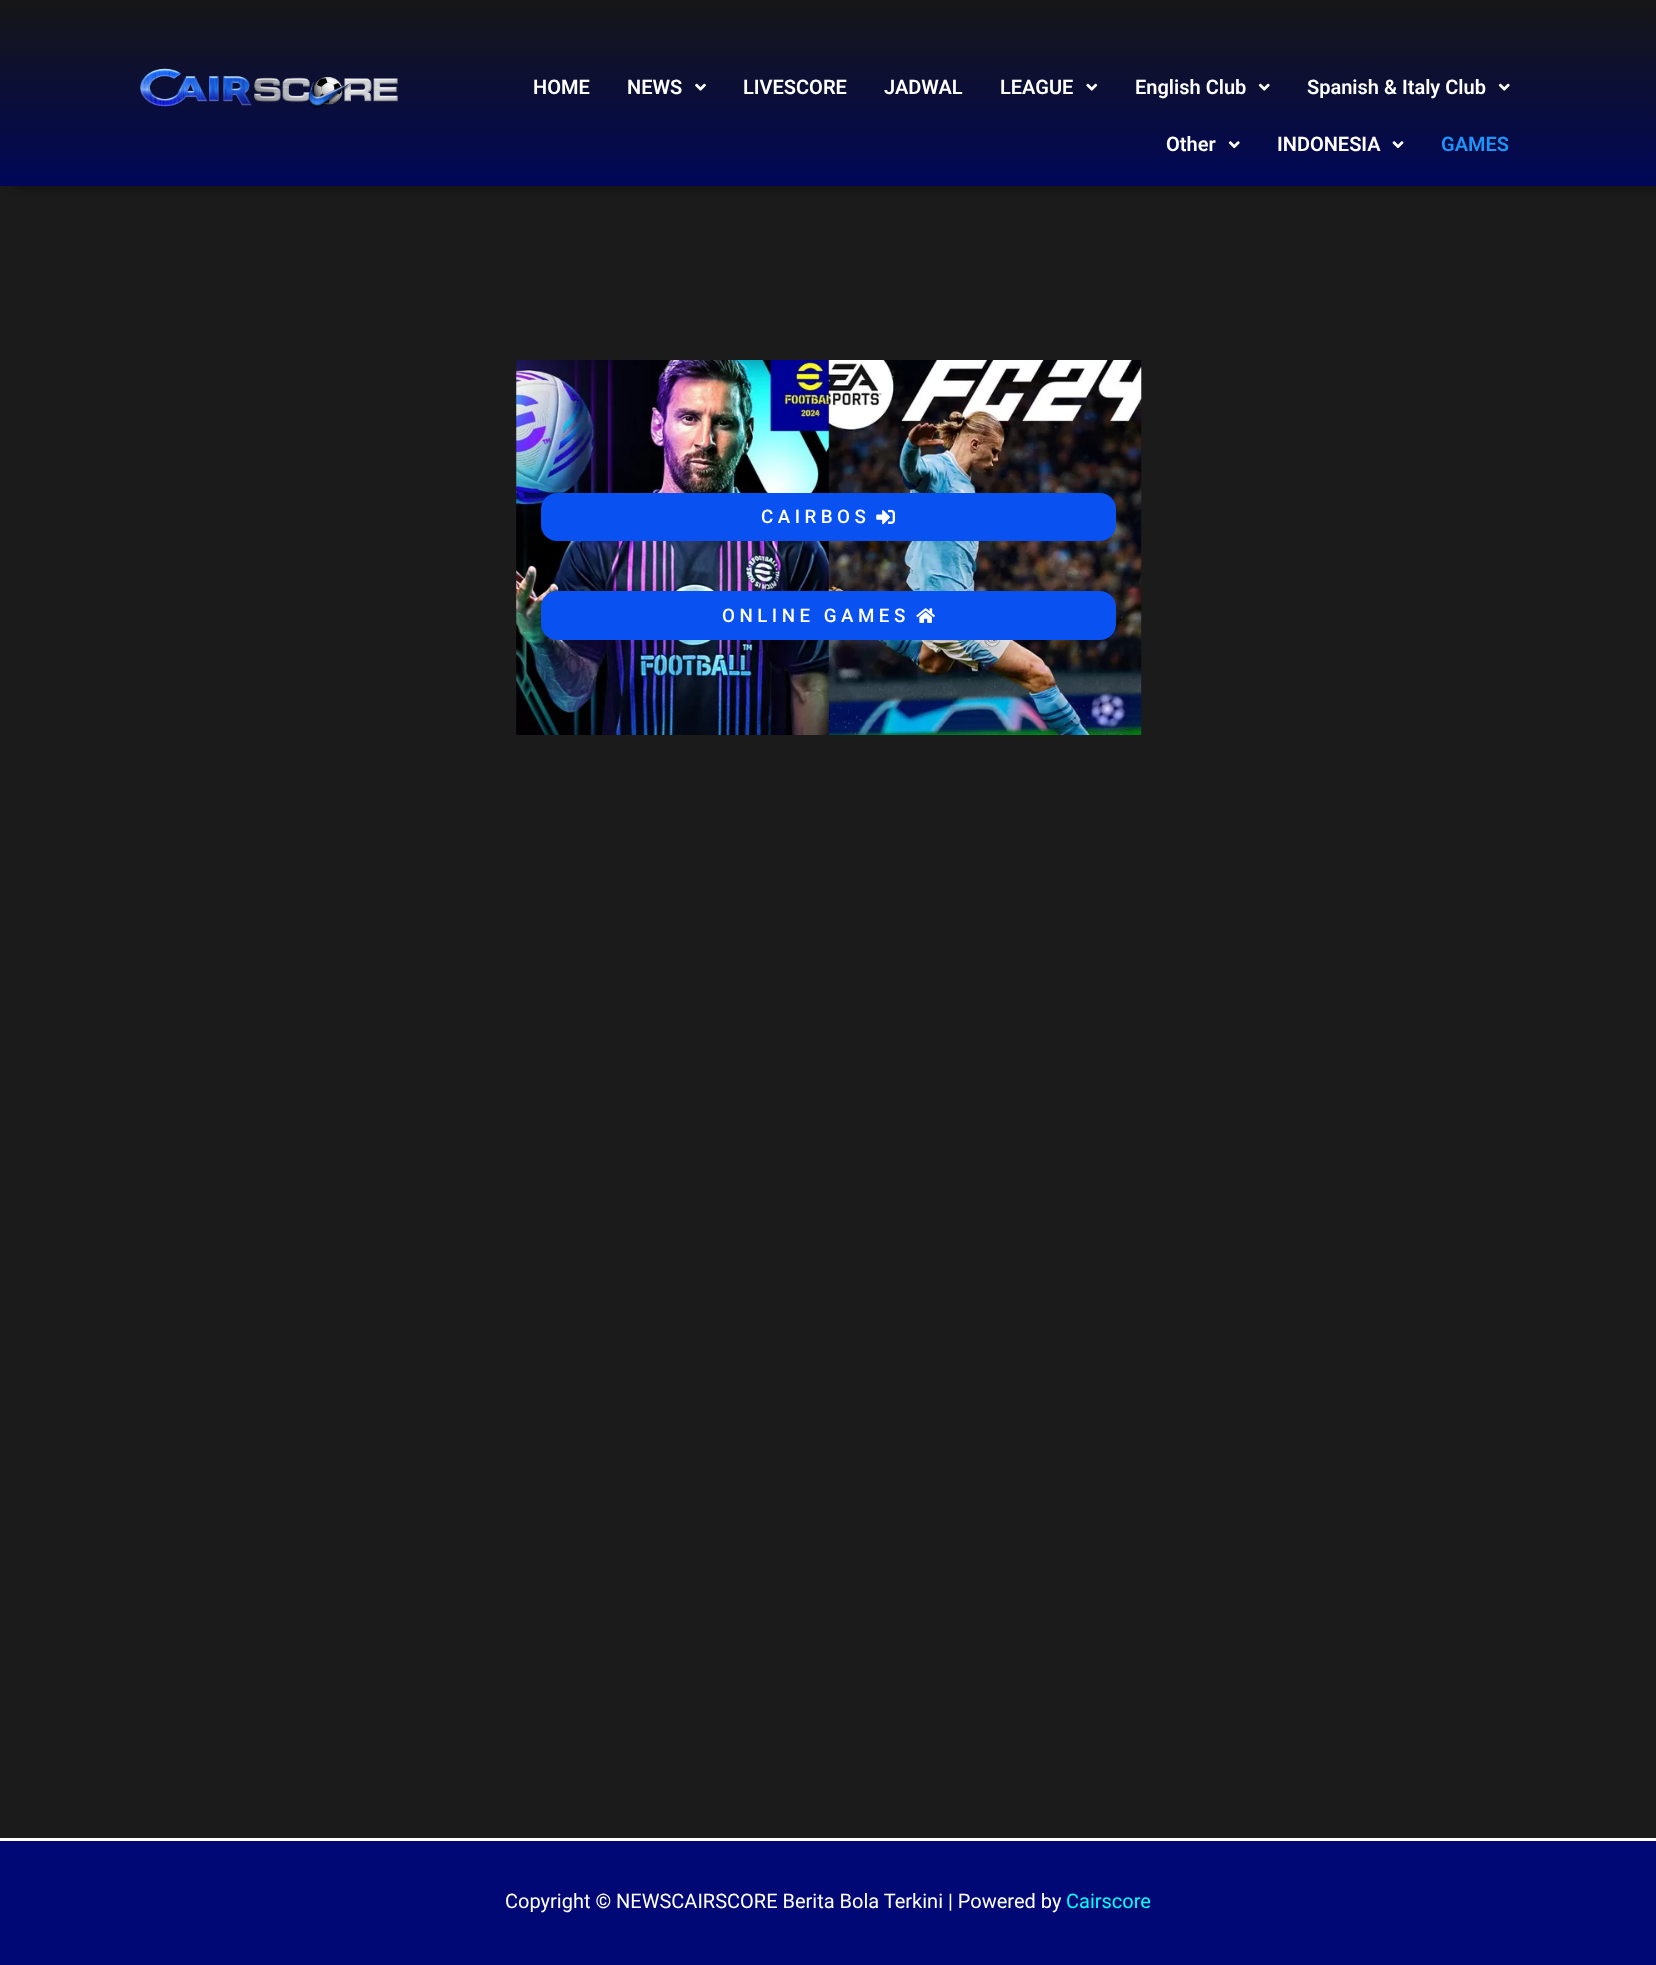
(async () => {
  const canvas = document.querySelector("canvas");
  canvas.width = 1656;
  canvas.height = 1965;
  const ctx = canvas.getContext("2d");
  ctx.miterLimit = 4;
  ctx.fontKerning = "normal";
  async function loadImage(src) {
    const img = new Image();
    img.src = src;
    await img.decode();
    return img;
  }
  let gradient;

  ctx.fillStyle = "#1b1b1b";
  ctx.fillRect(0, 0, 1656, 1965);
  ctx.fillStyle = "rgba(0, 0, 0, 0.5)";
  ctx.filter = "blur(6px)";
  ctx.beginPath();
  ctx.rect(15, 0, 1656, 186);
  ctx.fill();
  ctx.filter = "none";
  gradient = ctx.createLinearGradient(828, 0, 828, 186);
  gradient.addColorStop(0, "#161616");
  gradient.addColorStop(1, "#000758");
  ctx.fillStyle = gradient;
  ctx.fillRect(0, 0, 1656, 186);
  ctx.drawImage(await loadImage("img/1.png"), 140, 68, 258, 40);
  ctx.drawImage(await loadImage("img/2.png"), 695, 83, 11, 8);
  ctx.drawImage(await loadImage("img/3.png"), 1086, 83, 12, 8);
  ctx.drawImage(await loadImage("img/4.png"), 1258, 83, 12, 8);
  ctx.drawImage(await loadImage("img/4.png"), 1498, 83, 12, 8);
  ctx.drawImage(await loadImage("img/5.png"), 1228, 141, 12, 8);
  ctx.drawImage(await loadImage("img/6.png"), 1392, 141, 12, 8);
  ctx.drawImage(await loadImage("img/7.png"), 516, 360, 626, 375);
  ctx.fillStyle = "#0a51f1";
  ctx.beginPath();
  ctx.roundRect(541, 493, 575, 48, 16);
  ctx.fill();
  ctx.drawImage(await loadImage("img/8.png"), 876, 509, 19, 16);
  ctx.beginPath();
  ctx.roundRect(541, 591, 575, 49, 16);
  ctx.fill();
  ctx.drawImage(await loadImage("img/9.png"), 916, 608, 19, 15);
  ctx.fillStyle = "#000875";
  ctx.fillRect(0, 1841, 1656, 124);
  ctx.fillStyle = "#ffffff";
  ctx.fillRect(0, 1838, 1656, 3);
  ctx.font = "600 20px Roboto";
  for (const [text, x, y] of [
    ["HOME", 533, 94],
    ["NEWS", 627, 94],
    ["LIVESCORE", 743, 94],
    ["JADWAL", 884, 94],
    ["LEAGUE", 1000, 94],
    ["English Club", 1135, 94],
    ["Spanish & Italy Club", 1307, 94],
    ["Other", 1166, 151],
    ["INDONESIA", 1277, 151],
  ]) {
    ctx.fillText(text, x, y);
  }
  ctx.fillStyle = "#1d94f8";
  ctx.fillText("GAMES", 1441, 151);
  ctx.letterSpacing = "4.5px";
  ctx.font = "500 18.75px Roboto";
  ctx.fillStyle = "#ffffff";
  ctx.fillText("CAIRBOS", 761, 523);
  ctx.fillText("ONLINE GAMES", 722, 622);
  ctx.letterSpacing = "0px";
  ctx.font = "20px Roboto";
  ctx.fillText("Copyright © NEWSCAIRSCORE Berita Bola Terkini | Powered by", 505, 1908);
  ctx.fillStyle = "#00ffff";
  ctx.fillText("Cairscore", 1066, 1908);
})();
